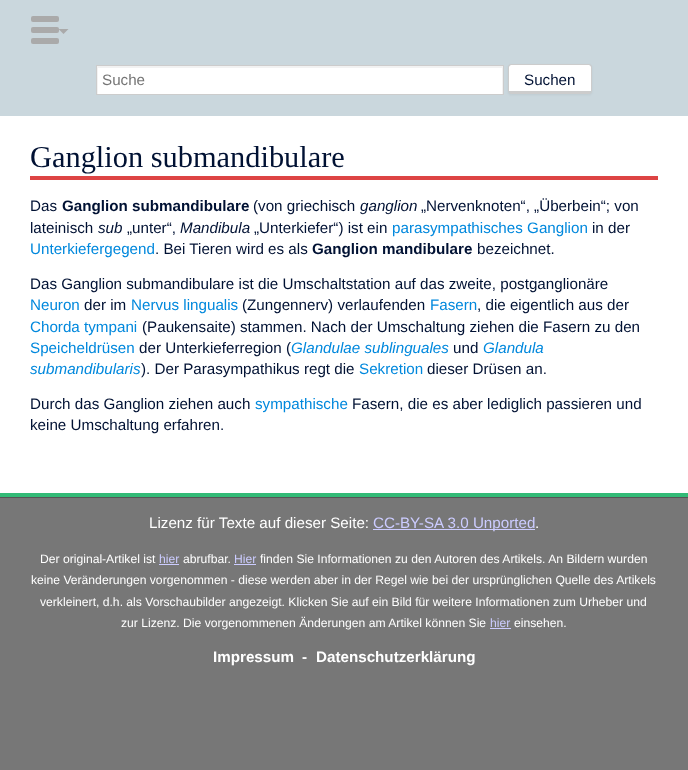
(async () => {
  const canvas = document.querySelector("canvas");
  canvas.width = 688;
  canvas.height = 770;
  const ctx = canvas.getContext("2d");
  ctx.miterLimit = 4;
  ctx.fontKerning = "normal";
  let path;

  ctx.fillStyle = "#777777";
  ctx.fillRect(0, 0, 688, 770);
  ctx.fillStyle = "#cad7dd";
  ctx.fillRect(0, 0, 688, 116);
  ctx.fillStyle = "#ffffff";
  ctx.fillRect(98, 68, 404, 26);
  ctx.save();
  ctx.beginPath();
  ctx.rect(97, 66, 406, 28);
  ctx.clip();
  ctx.fillStyle = "#f2f2f2";
  path = new Path2D("M-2-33H602V193H-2ZM98 68H502V94H98Z");
  ctx.fill(path, "evenodd");
  ctx.restore();
  ctx.strokeStyle = "#cccccc";
  ctx.strokeRect(96.5, 65.5, 407, 29);
  ctx.fillStyle = "rgba(0, 0, 0, 0.05)";
  ctx.filter = "blur(1px)";
  ctx.beginPath();
  ctx.roundRect(508, 65, 84, 30, 3);
  ctx.fill();
  ctx.filter = "none";
  ctx.fillStyle = "#ffffff";
  path = new Path2D("M511 65H589C590 65 591 66 591 67V91H589H509V67C509 66 510 65 511 65Z");
  ctx.fill(path);
  ctx.beginPath();
  ctx.roundRect(508.5, 64.5, 83, 29, 2.5);
  ctx.stroke();
  for (const [x, y, w, h, color] of [
    [510, 91, 80, 2, "#cccccc"],
    [0, 493, 688, 4, "#33bb77"],
    [0, 116, 688, 377, "#ffffff"],
  ]) {
    ctx.fillStyle = color;
    ctx.fillRect(x, y, w, h);
  }
  ctx.fillStyle = "#aaaaaa";
  ctx.beginPath();
  ctx.roundRect(31, 38, 28, 6, 2);
  ctx.fill();
  ctx.beginPath();
  ctx.roundRect(31, 27, 28, 6, 2);
  ctx.fill();
  ctx.beginPath();
  ctx.roundRect(31, 16, 28, 6, 2);
  ctx.fill();
  path = new Path2D("M68.5 29L63.5 34L58.5 29Z");
  ctx.fill(path);
  for (const [x, y, w, h, color] of [
    [30, 176, 628, 4, "#dd4444"],
    [0, 497, 688, 1, "#555555"],
    [373, 529, 162, 1, "#ccccff"],
    [159, 564, 20, 1, "#ccccff"],
    [234, 564, 22, 1, "#ccccff"],
    [490, 628, 21, 1, "#ccccff"],
  ]) {
    ctx.fillStyle = color;
    ctx.fillRect(x, y, w, h);
  }
  ctx.font = "15.2px Liberation Sans";
  ctx.fillStyle = "#757575";
  ctx.fillText("Suche", 102, 85);
  ctx.fillStyle = "#001133";
  ctx.fillText("Suchen", 524, 85);
  ctx.font = "30.4px Liberation Serif";
  ctx.fillText("Ganglion submandibulare", 30, 167);
  ctx.font = "15.2px Liberation Sans";
  ctx.fillText("Das", 30, 211);
  ctx.font = "bold 15.2px Liberation Sans";
  ctx.fillText("Ganglion submandibulare", 62, 211);
  ctx.font = "15.2px Liberation Sans";
  ctx.fillText("(von griechisch", 253, 211);
  ctx.font = "italic 15.2px Liberation Sans";
  ctx.fillText("ganglion", 360, 211);
  ctx.font = "15.2px Liberation Sans";
  ctx.fillText("„Nervenknoten“, „Überbein“; von", 421, 211);
  ctx.fillText("lateinisch", 30, 233);
  ctx.font = "italic 15.2px Liberation Sans";
  ctx.fillText("sub", 98, 233);
  ctx.font = "15.2px Liberation Sans";
  ctx.fillText("„unter“,", 127, 233);
  ctx.font = "italic 15.2px Liberation Sans";
  ctx.fillText("Mandibula", 180, 233);
  ctx.font = "15.2px Liberation Sans";
  ctx.fillText("„Unterkiefer“) ist ein", 254, 233);
  ctx.fillStyle = "#0088dd";
  ctx.fillText("parasympathisches Ganglion", 392, 233);
  ctx.fillStyle = "#001133";
  ctx.fillText("in der", 592, 233);
  ctx.fillStyle = "#0088dd";
  ctx.fillText("Unterkiefergegend", 30, 254);
  ctx.fillStyle = "#001133";
  ctx.fillText(". Bei Tieren wird es als", 155, 254);
  ctx.font = "bold 15.2px Liberation Sans";
  ctx.fillText("Ganglion mandibulare", 312, 254);
  ctx.font = "15.2px Liberation Sans";
  ctx.fillText("bezeichnet.", 477, 254);
  ctx.fillText("Das Ganglion submandibulare ist die Umschaltstation auf das zweite, postganglionäre", 30, 289);
  ctx.fillStyle = "#0088dd";
  ctx.fillText("Neuron", 30, 310);
  ctx.fillStyle = "#001133";
  ctx.fillText("der im", 84, 310);
  ctx.fillStyle = "#0088dd";
  ctx.fillText("Nervus lingualis", 131, 310);
  ctx.fillStyle = "#001133";
  ctx.fillText("(Zungennerv) verlaufenden", 242, 310);
  ctx.fillStyle = "#0088dd";
  ctx.fillText("Fasern", 430, 310);
  ctx.fillStyle = "#001133";
  ctx.fillText(", die eigentlich aus der", 477, 310);
  ctx.fillStyle = "#0088dd";
  ctx.fillText("Chorda tympani", 30, 332);
  ctx.fillStyle = "#001133";
  ctx.fillText("(Paukensaite) stammen. Nach der Umschaltung ziehen die Fasern zu den", 142, 332);
  ctx.fillStyle = "#0088dd";
  ctx.fillText("Speicheldrüsen", 30, 353);
  ctx.fillStyle = "#001133";
  ctx.fillText("der Unterkieferregion (", 139, 353);
  ctx.font = "italic 15.2px Liberation Sans";
  ctx.fillStyle = "#0088dd";
  ctx.fillText("Glandulae sublinguales", 291, 353);
  ctx.font = "15.2px Liberation Sans";
  ctx.fillStyle = "#001133";
  ctx.fillText("und", 453, 353);
  ctx.font = "italic 15.2px Liberation Sans";
  ctx.fillStyle = "#0088dd";
  ctx.fillText("Glandula", 483, 353);
  ctx.fillText("submandibularis", 30, 374);
  ctx.font = "15.2px Liberation Sans";
  ctx.fillStyle = "#001133";
  ctx.fillText("). Der Parasympathikus regt die", 141, 374);
  ctx.fillStyle = "#0088dd";
  ctx.fillText("Sekretion", 359, 374);
  ctx.fillStyle = "#001133";
  ctx.fillText("dieser Drüsen an.", 427, 374);
  ctx.fillText("Durch das Ganglion ziehen auch", 30, 409);
  ctx.fillStyle = "#0088dd";
  ctx.fillText("sympathische", 255, 409);
  ctx.fillStyle = "#001133";
  ctx.fillText("Fasern, die es aber lediglich passieren und", 352, 409);
  ctx.fillText("keine Umschaltung erfahren.", 30, 430);
  ctx.fillStyle = "#ffffff";
  ctx.fillText("Lizenz für Texte auf dieser Seite:", 149, 528);
  ctx.fillStyle = "#ccccff";
  ctx.fillText("CC-BY-SA 3.0 Unported", 373, 528);
  ctx.fillStyle = "#ffffff";
  ctx.fillText(".", 535, 528);
  ctx.font = "12.15px Liberation Sans";
  ctx.fillText("Der original-Artikel ist", 40, 563);
  ctx.fillStyle = "#ccccff";
  ctx.fillText("hier", 159, 563);
  ctx.fillStyle = "#ffffff";
  ctx.fillText("abrufbar.", 183, 563);
  ctx.fillStyle = "#ccccff";
  ctx.fillText("Hier", 234, 563);
  ctx.fillStyle = "#ffffff";
  for (const [text, x, y] of [
    ["finden Sie Informationen zu den Autoren des Artikels. An Bildern wurden", 260, 563],
    ["keine Veränderungen vorgenommen - diese werden aber in der Regel wie bei der ursprünglichen Quelle des Artikels", 31, 584],
    ["verkleinert, d.h. als Vorschaubilder angezeigt. Klicken Sie auf ein Bild für weitere Informationen zum Urheber und", 40, 606],
    ["zur Lizenz. Die vorgenommenen Änderungen am Artikel können Sie", 121, 627],
  ]) {
    ctx.fillText(text, x, y);
  }
  ctx.fillStyle = "#ccccff";
  ctx.fillText("hier", 490, 627);
  ctx.fillStyle = "#ffffff";
  ctx.fillText("einsehen.", 514, 627);
  ctx.font = "bold 15.2px Liberation Sans";
  for (const [text, x, y] of [
    ["Impressum", 213, 662],
    ["-", 302, 662],
    ["Datenschutzerklärung", 316, 662],
  ]) {
    ctx.fillText(text, x, y);
  }
})();
